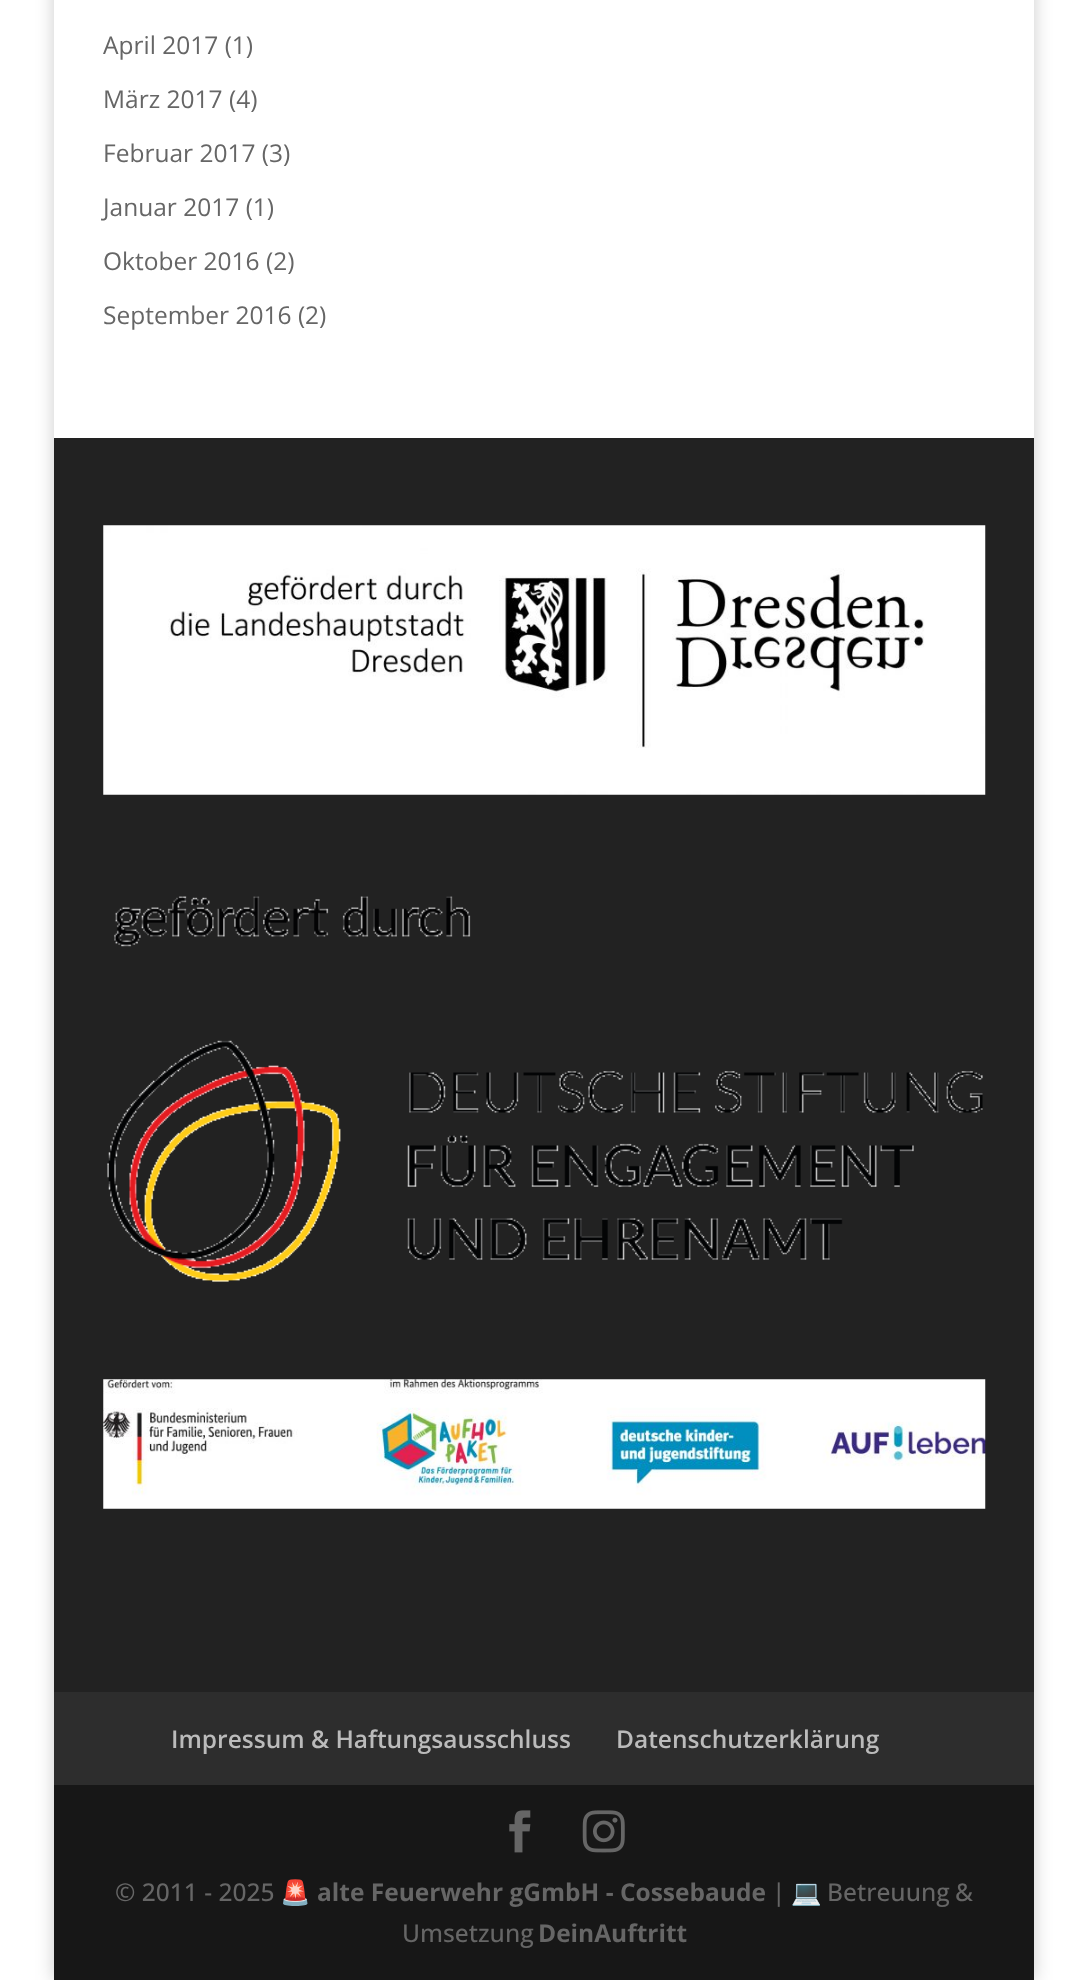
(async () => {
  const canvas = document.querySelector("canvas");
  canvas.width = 1087;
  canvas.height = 1980;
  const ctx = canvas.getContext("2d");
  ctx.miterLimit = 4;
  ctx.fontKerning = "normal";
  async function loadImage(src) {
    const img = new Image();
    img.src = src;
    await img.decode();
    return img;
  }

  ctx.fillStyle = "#ffffff";
  ctx.fillRect(0, 0, 1087, 1980);
  ctx.fillStyle = "rgba(0, 0, 0, 0.2)";
  ctx.filter = "blur(9px)";
  ctx.beginPath();
  ctx.rect(54, -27, 980, 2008);
  ctx.fill();
  ctx.filter = "none";
  ctx.fillStyle = "#ffffff";
  ctx.fillRect(54, 0, 980, 438);
  ctx.fillStyle = "#222222";
  ctx.fillRect(54, 438, 980, 1254);
  ctx.drawImage(await loadImage("img/1.png"), 103, 525, 883, 270);
  ctx.drawImage(await loadImage("img/2.png"), 107, 896, 876, 386);
  ctx.drawImage(await loadImage("img/3.png"), 103, 1379, 883, 130);
  ctx.fillStyle = "#2d2d2d";
  ctx.fillRect(54, 1692, 980, 93);
  ctx.fillStyle = "#171717";
  ctx.fillRect(54, 1785, 980, 195);
  ctx.drawImage(await loadImage("img/4.png"), 509, 1810, 22, 43);
  ctx.drawImage(await loadImage("img/5.png"), 582, 1810, 43, 43);
  ctx.font = "24.5px Open Sans";
  ctx.fillStyle = "#666666";
  for (const [text, x, y] of [
    ["April 2017 (1)", 103, 54],
    ["März 2017 (4)", 103, 108],
    ["Februar 2017 (3)", 103, 162],
    ["Januar 2017 (1)", 103, 216],
    ["Oktober 2016 (2)", 103, 270],
    ["September 2016 (2)", 103, 324],
  ]) {
    ctx.fillText(text, x, y);
  }
  ctx.font = "600 24.5px Open Sans";
  ctx.fillStyle = "#bbbbbb";
  ctx.fillText("Impressum & Haftungsausschluss", 171, 1748);
  ctx.fillText("Datenschutzerklärung", 616, 1748);
  ctx.font = "500 24.5px Open Sans";
  ctx.fillStyle = "#666666";
  ctx.fillText("© 2011 - 2025", 115, 1901);
  ctx.font = "24.5px Noto Color Emoji";
  ctx.fillText("🚨", 280, 1901);
  ctx.font = "bold 24.5px Open Sans";
  ctx.fillText("alte Feuerwehr gGmbH - Cossebaude", 317, 1901);
  ctx.font = "500 24.5px Open Sans";
  ctx.fillText("|", 772, 1901);
  ctx.font = "24.5px Noto Color Emoji";
  ctx.fillText("💻", 791, 1901);
  ctx.wordSpacing = "-1px";
  ctx.font = "500 24.5px Open Sans";
  ctx.fillText("Betreuung &", 827, 1901);
  ctx.wordSpacing = "0px";
  ctx.fillText("Umsetzung", 402, 1942);
  ctx.font = "bold 24.5px Open Sans";
  ctx.fillText("DeinAuftritt", 538, 1942);
})();
